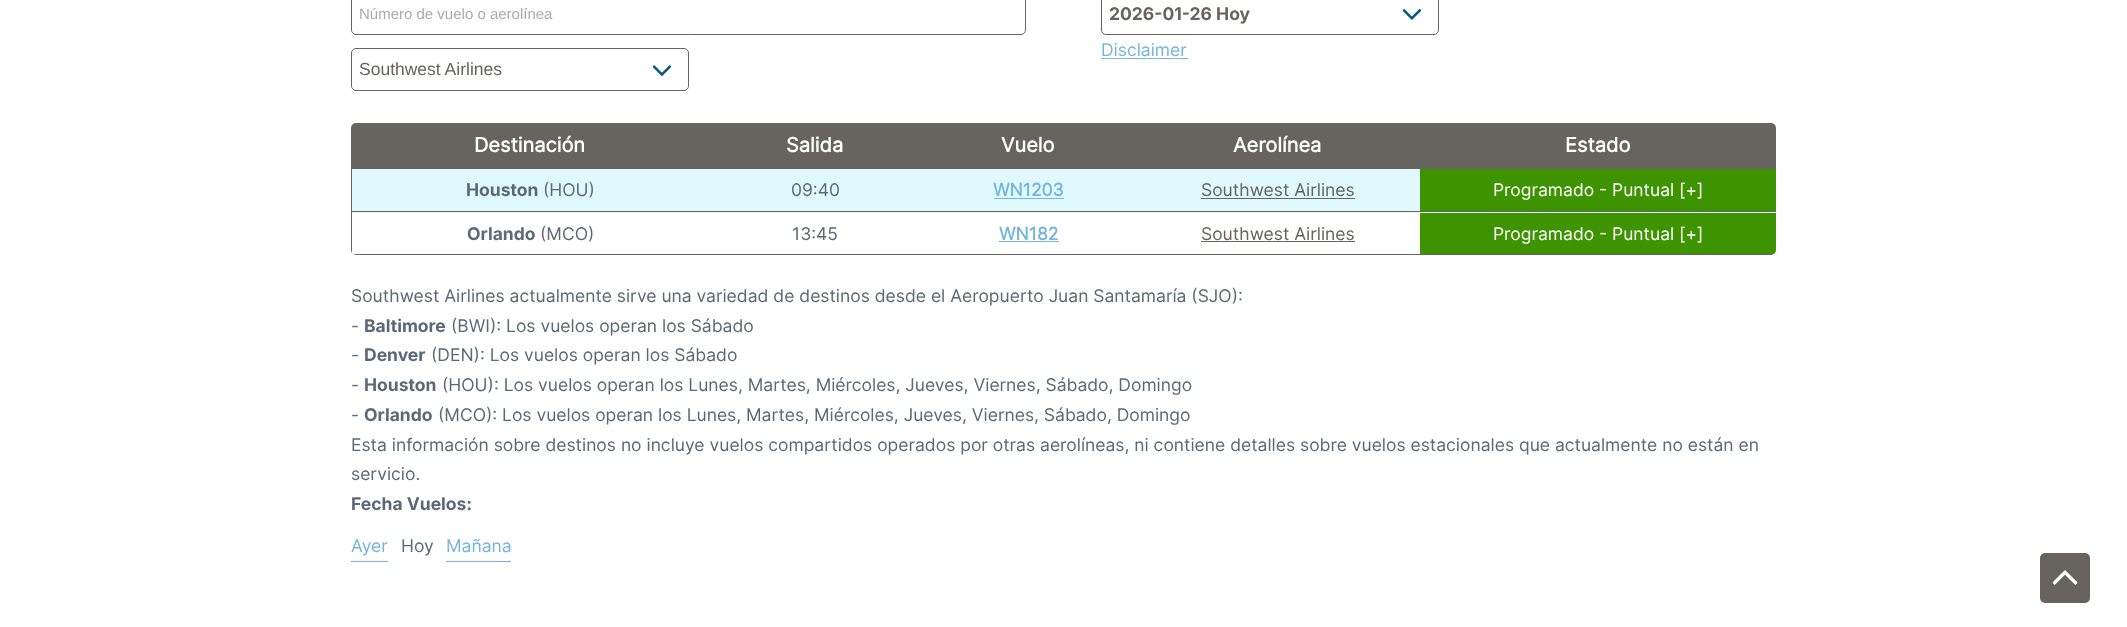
(async () => {
  const canvas = document.querySelector("canvas");
  canvas.width = 2127;
  canvas.height = 627;
  const ctx = canvas.getContext("2d");
  ctx.miterLimit = 4;
  ctx.fontKerning = "normal";
  async function loadImage(src) {
    const img = new Image();
    img.src = src;
    await img.decode();
    return img;
  }

  ctx.fillStyle = "#ffffff";
  ctx.fillRect(0, 0, 2127, 627);
  ctx.beginPath();
  ctx.roundRect(351.5, -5.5, 674, 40, 4.5);
  ctx.strokeStyle = "#67635e";
  ctx.stroke();
  ctx.drawImage(await loadImage("img/1.png"), 653, 65, 18, 11);
  ctx.beginPath();
  ctx.roundRect(351.5, 48.5, 337, 42, 4.5);
  ctx.stroke();
  ctx.drawImage(await loadImage("img/2.png"), 1403, 9, 18, 11);
  ctx.beginPath();
  ctx.roundRect(1101.5, -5.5, 337, 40, 4.5);
  ctx.stroke();
  ctx.fillStyle = "#76b5de";
  ctx.fillRect(1101, 58, 87, 1);
  ctx.fillStyle = "#67635e";
  ctx.beginPath();
  ctx.roundRect(351, 123, 1425, 46, [5, 5, 0, 0]);
  ctx.fill();
  for (const [x, y, w, h, color] of [
    [352, 169, 1424, 44, "#dff9ff"],
    [351, 211, 1425, 1, "#67635e"],
    [351, 169, 1, 44, "#67635e"],
    [994, 198, 70, 1, "#76b5de"],
    [1201, 198, 154, 1, "#67635e"],
    [1420, 169, 356, 42, "#3d9400"],
  ]) {
    ctx.fillStyle = color;
    ctx.fillRect(x, y, w, h);
  }
  ctx.save();
  ctx.beginPath();
  ctx.roundRect(351, 123, 1425, 132, 5);
  ctx.clip();
  ctx.fillStyle = "#67635e";
  ctx.fillRect(351, 254, 1425, 1);
  ctx.fillRect(351, 213, 1, 42);
  ctx.restore();
  ctx.fillStyle = "#76b5de";
  ctx.fillRect(999, 241, 60, 1);
  ctx.fillStyle = "#67635e";
  ctx.fillRect(1201, 241, 154, 1);
  ctx.save();
  ctx.beginPath();
  ctx.roundRect(351, 123, 1425, 132, 5);
  ctx.clip();
  ctx.fillStyle = "#3d9400";
  ctx.fillRect(1420, 213, 356, 41);
  ctx.restore();
  ctx.fillStyle = "#76b5de";
  ctx.fillRect(351, 561, 37, 1);
  ctx.fillRect(446, 561, 65, 1);
  ctx.fillStyle = "#67635e";
  ctx.beginPath();
  ctx.roundRect(2040, 553, 50, 50, 5);
  ctx.fill();
  ctx.drawImage(await loadImage("img/3.png"), 2053, 570, 25, 15);
  ctx.font = "15px Liberation Sans";
  ctx.fillStyle = "#aaaaaa";
  ctx.fillText("Número de vuelo o aerolínea", 359, 19);
  ctx.font = "17.5px Liberation Sans";
  ctx.fillStyle = "#67635e";
  ctx.fillText("Southwest Airlines", 359, 75);
  ctx.font = "bold 17.5px Inter";
  ctx.fillText("2026-01-26 Hoy", 1109, 20);
  ctx.font = "17.5px Inter";
  ctx.fillStyle = "#76b5de";
  ctx.fillText("Disclaimer", 1101, 56);
  ctx.font = "bold 20px 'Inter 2'";
  ctx.fillStyle = "#ffffff";
  for (const [text, x, y] of [
    ["Destinación", 474, 152],
    ["Salida", 786, 152],
    ["Vuelo", 1001, 152],
    ["Aerolínea", 1233, 152],
    ["Estado", 1565, 152],
  ]) {
    ctx.fillText(text, x, y);
  }
  ctx.font = "bold 17.5px Inter";
  ctx.fillStyle = "#5a6978";
  ctx.fillText("Houston", 466, 196);
  ctx.font = "17.5px Inter";
  ctx.fillText("(HOU)", 543, 196);
  ctx.fillText("09:40", 791, 196);
  ctx.font = "bold 17.5px 'Inter 2'";
  ctx.fillStyle = "#76b5de";
  ctx.fillText("WN1203", 993, 196);
  ctx.font = "17.5px Inter";
  ctx.fillStyle = "#67635e";
  ctx.fillText("Southwest Airlines", 1201, 196);
  ctx.fillStyle = "#ffffff";
  ctx.fillText("Programado - Puntual [+]", 1493, 196);
  ctx.font = "bold 17.5px Inter";
  ctx.fillStyle = "#5a6978";
  ctx.fillText("Orlando", 467, 240);
  ctx.font = "17.5px Inter";
  ctx.fillText("(MCO)", 540, 240);
  ctx.fillText("13:45", 792, 240);
  ctx.font = "bold 17.5px 'Inter 2'";
  ctx.fillStyle = "#76b5de";
  ctx.fillText("WN182", 999, 240);
  ctx.font = "17.5px Inter";
  ctx.fillStyle = "#67635e";
  ctx.fillText("Southwest Airlines", 1201, 240);
  ctx.fillStyle = "#ffffff";
  ctx.fillText("Programado - Puntual [+]", 1493, 240);
  ctx.fillStyle = "#5a6978";
  ctx.fillText("Southwest Airlines actualmente sirve una variedad de destinos desde el Aeropuerto Juan Santamaría (SJO):", 351, 302);
  ctx.fillText("-", 351, 332);
  ctx.font = "bold 17.5px Inter";
  ctx.fillText("Baltimore", 364, 332);
  ctx.font = "17.5px Inter";
  ctx.fillText("(BWI): Los vuelos operan los Sábado", 451, 332);
  ctx.fillText("-", 351, 361);
  ctx.font = "bold 17.5px Inter";
  ctx.fillText("Denver", 364, 361);
  ctx.font = "17.5px Inter";
  ctx.fillText("(DEN): Los vuelos operan los Sábado", 431, 361);
  ctx.fillText("-", 351, 391);
  ctx.font = "bold 17.5px Inter";
  ctx.fillText("Houston", 364, 391);
  ctx.font = "17.5px Inter";
  ctx.fillText("(HOU): Los vuelos operan los Lunes, Martes, Miércoles, Jueves, Viernes, Sábado, Domingo", 442, 391);
  ctx.fillText("-", 351, 421);
  ctx.font = "bold 17.5px Inter";
  ctx.fillText("Orlando", 364, 421);
  ctx.font = "17.5px Inter";
  for (const [text, x, y] of [
    ["(MCO): Los vuelos operan los Lunes, Martes, Miércoles, Jueves, Viernes, Sábado, Domingo", 438, 421],
    ["Esta información sobre destinos no incluye vuelos compartidos operados por otras aerolíneas, ni contiene detalles sobre vuelos estacionales que actualmente no están en", 351, 451],
    ["servicio.", 351, 480],
  ]) {
    ctx.fillText(text, x, y);
  }
  ctx.font = "bold 17.5px Inter";
  ctx.fillText("Fecha Vuelos:", 351, 510);
  ctx.font = "17.5px Inter";
  ctx.fillStyle = "#76b5de";
  ctx.fillText("Ayer", 351, 552);
  ctx.fillStyle = "#5a6978";
  ctx.fillText("Hoy", 401, 552);
  ctx.fillStyle = "#76b5de";
  ctx.fillText("Mañana", 446, 552);
})();
